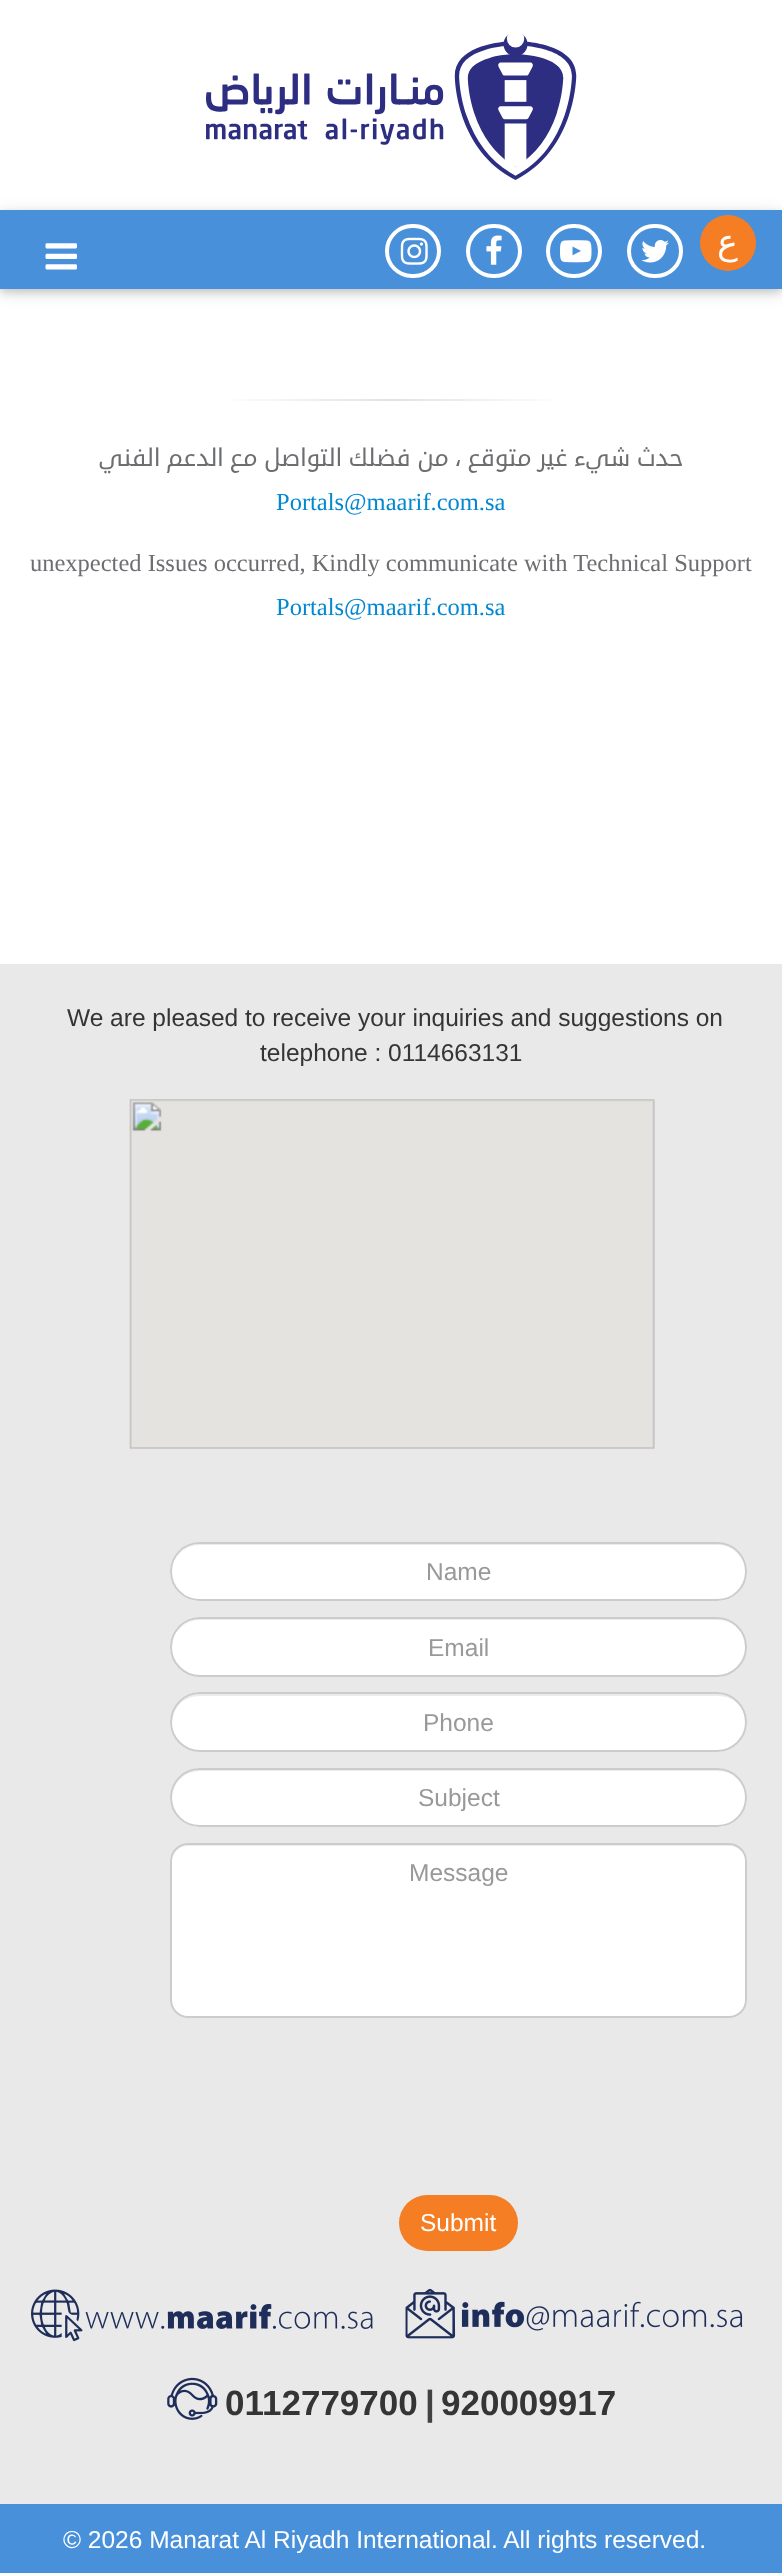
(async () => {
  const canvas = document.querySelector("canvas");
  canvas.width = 782;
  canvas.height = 2573;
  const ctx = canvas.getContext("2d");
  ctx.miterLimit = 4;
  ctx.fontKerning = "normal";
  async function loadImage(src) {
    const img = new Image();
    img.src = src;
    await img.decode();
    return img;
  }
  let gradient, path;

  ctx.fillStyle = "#ffffff";
  ctx.fillRect(0, 0, 782, 2573);
  ctx.drawImage(await loadImage("img/1.png"), 206, 34, 371, 146);
  ctx.fillStyle = "rgba(0, 0, 0, 0.12)";
  ctx.filter = "blur(9px)";
  ctx.beginPath();
  ctx.rect(0, 214, 782, 78);
  ctx.fill();
  ctx.filter = "none";
  ctx.fillStyle = "rgba(0, 0, 0, 0.16)";
  ctx.filter = "blur(4.5px)";
  ctx.beginPath();
  ctx.rect(0, 214, 782, 78);
  ctx.fill();
  ctx.filter = "none";
  ctx.fillStyle = "#4890da";
  ctx.fillRect(0, 210, 782, 79);
  ctx.drawImage(await loadImage("img/2.png"), 45, 243, 32, 27);
  ctx.beginPath();
  ctx.roundRect(387, 226, 52, 50, 25);
  ctx.strokeStyle = "#ffffff";
  ctx.lineWidth = 4;
  ctx.stroke();
  ctx.drawImage(await loadImage("img/3.png"), 400, 237, 28, 28);
  ctx.beginPath();
  ctx.roundRect(468, 226, 52, 50, 25);
  ctx.stroke();
  ctx.drawImage(await loadImage("img/4.png"), 486, 235, 16, 30);
  ctx.beginPath();
  ctx.roundRect(548, 226, 52, 50, 25);
  ctx.stroke();
  ctx.drawImage(await loadImage("img/5.png"), 560, 240, 32, 23);
  ctx.beginPath();
  ctx.roundRect(629, 226, 52, 50, 25);
  ctx.stroke();
  ctx.drawImage(await loadImage("img/6.png"), 641, 240, 28, 23);
  ctx.fillStyle = "#f57e24";
  ctx.beginPath();
  ctx.arc(728, 243, 28, 0, Math.PI * 2);
  ctx.fill();
  gradient = ctx.createLinearGradient(217, 400, 567, 400);
  gradient.addColorStop(0, "#ffffff");
  gradient.addColorStop(0.5, "#e2e2e2");
  gradient.addColorStop(1, "#ffffff");
  ctx.fillStyle = gradient;
  ctx.fillRect(232, 399, 320, 2);
  ctx.fillStyle = "#e9e9e9";
  ctx.fillRect(0, 964, 782, 1540);
  ctx.drawImage(await loadImage("img/7.png"), 129, 1099, 526, 350);
  ctx.fillStyle = "#ffffff";
  ctx.beginPath();
  ctx.roundRect(170, 1542, 577, 59, 29.5);
  ctx.fill();
  ctx.fillStyle = "#ececec";
  path = new Path2D("M200 1545H718C733 1545 746 1558 746 1573C746 1557 733 1544 718 1544H200C185 1544 172 1557 172 1573C172 1558 184 1545 200 1545Z");
  ctx.fill(path);
  ctx.beginPath();
  ctx.roundRect(171, 1543, 575, 57, 28.5);
  ctx.strokeStyle = "#cccccc";
  ctx.lineWidth = 2;
  ctx.stroke();
  ctx.fillStyle = "#ffffff";
  ctx.beginPath();
  ctx.roundRect(170, 1617, 577, 60, 30);
  ctx.fill();
  ctx.fillStyle = "#ececec";
  path = new Path2D("M200 1620H718C733 1620 746 1633 746 1648C746 1632 733 1619 718 1619H200C185 1619 172 1632 172 1648C172 1633 184 1620 200 1620Z");
  ctx.fill(path);
  ctx.beginPath();
  ctx.roundRect(171, 1618, 575, 58, 29);
  ctx.stroke();
  ctx.fillStyle = "#ffffff";
  ctx.beginPath();
  ctx.roundRect(170, 1692, 577, 60, 30);
  ctx.fill();
  ctx.fillStyle = "#ececec";
  path = new Path2D("M200 1696H718C733 1696 745 1707 746 1723C747 1707 734 1694 718 1694H200C184 1694 171 1707 172 1723C173 1707 184 1696 200 1696Z");
  ctx.fill(path);
  ctx.beginPath();
  ctx.roundRect(171, 1693, 575, 58, 29);
  ctx.stroke();
  ctx.fillStyle = "#ffffff";
  ctx.beginPath();
  ctx.roundRect(170, 1768, 577, 59, 29.5);
  ctx.fill();
  ctx.fillStyle = "#ececec";
  path = new Path2D("M200 1771H718C733 1771 745 1783 746 1798C747 1782 734 1769 718 1769H200C184 1769 171 1782 172 1798C173 1783 184 1771 200 1771Z");
  ctx.fill(path);
  ctx.beginPath();
  ctx.roundRect(171, 1769, 575, 57, 28.5);
  ctx.stroke();
  ctx.fillStyle = "#ffffff";
  ctx.beginPath();
  ctx.roundRect(170, 1843, 577, 175, 18);
  ctx.fill();
  ctx.fillStyle = "#ececec";
  path = new Path2D("M187 1846H730C738 1846 746 1853 746 1862V1861C746 1852 739 1845 730 1845H188C179 1845 172 1852 172 1861V1862C172 1853 179 1846 187 1846Z");
  ctx.fill(path);
  ctx.beginPath();
  ctx.roundRect(171, 1844, 575, 173, 17);
  ctx.stroke();
  ctx.fillStyle = "#f57e24";
  ctx.beginPath();
  ctx.roundRect(399, 2195, 119, 56, 28);
  ctx.fill();
  ctx.drawImage(await loadImage("img/8.png"), 31, 2289, 342, 53);
  ctx.drawImage(await loadImage("img/9.png"), 405, 2288, 338, 51);
  ctx.drawImage(await loadImage("img/10.png"), 167, 2377, 51, 43);
  ctx.fillStyle = "#4890da";
  ctx.fillRect(0, 2504, 782, 69);
  ctx.direction = "rtl";
  ctx.font = "35px DejaVu Sans";
  ctx.fillStyle = "#ffffff";
  ctx.fillText("ع", 738, 254);
  ctx.font = "24.5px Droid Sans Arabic";
  ctx.fillStyle = "#6d6e71";
  ctx.fillText("حدث شيء غير متوقع ، من فضلك التواصل مع الدعم الفني", 683, 466);
  ctx.direction = "ltr";
  ctx.font = "24.5px Liberation Serif";
  ctx.fillStyle = "#0288d1";
  ctx.fillText("Portals@maarif.com.sa", 276, 510);
  ctx.fillStyle = "#6d6e71";
  ctx.fillText("unexpected Issues occurred, Kindly communicate with Technical Support", 30, 571);
  ctx.fillStyle = "#0288d1";
  ctx.fillText("Portals@maarif.com.sa", 276, 615);
  ctx.font = "24.5px Liberation Sans";
  ctx.fillStyle = "#353535";
  ctx.fillText("We are pleased to receive your inquiries and suggestions on", 67, 1026);
  ctx.fillText("telephone : 0114663131", 260, 1061);
  ctx.fillStyle = "#999999";
  for (const [text, x, y] of [
    ["Name", 426, 1580],
    ["Email", 428, 1656],
    ["Phone", 423, 1731],
    ["Subject", 418, 1806],
    ["Message", 409, 1881],
  ]) {
    ctx.fillText(text, x, y);
  }
  ctx.fillStyle = "#ffffff";
  ctx.fillText("Submit", 420, 2231);
  ctx.font = "bold 35px Liberation Sans";
  ctx.fillStyle = "#353535";
  ctx.fillText("0112779700", 225, 2415);
  ctx.fillStyle = "#424242";
  ctx.fillText("|", 425, 2415);
  ctx.fillStyle = "#353535";
  ctx.fillText("920009917", 441, 2415);
  ctx.font = "24.5px Liberation Sans";
  ctx.fillStyle = "#ffffff";
  ctx.fillText("© 2026 Manarat Al Riyadh International. All rights reserved.", 63, 2548);
})();
